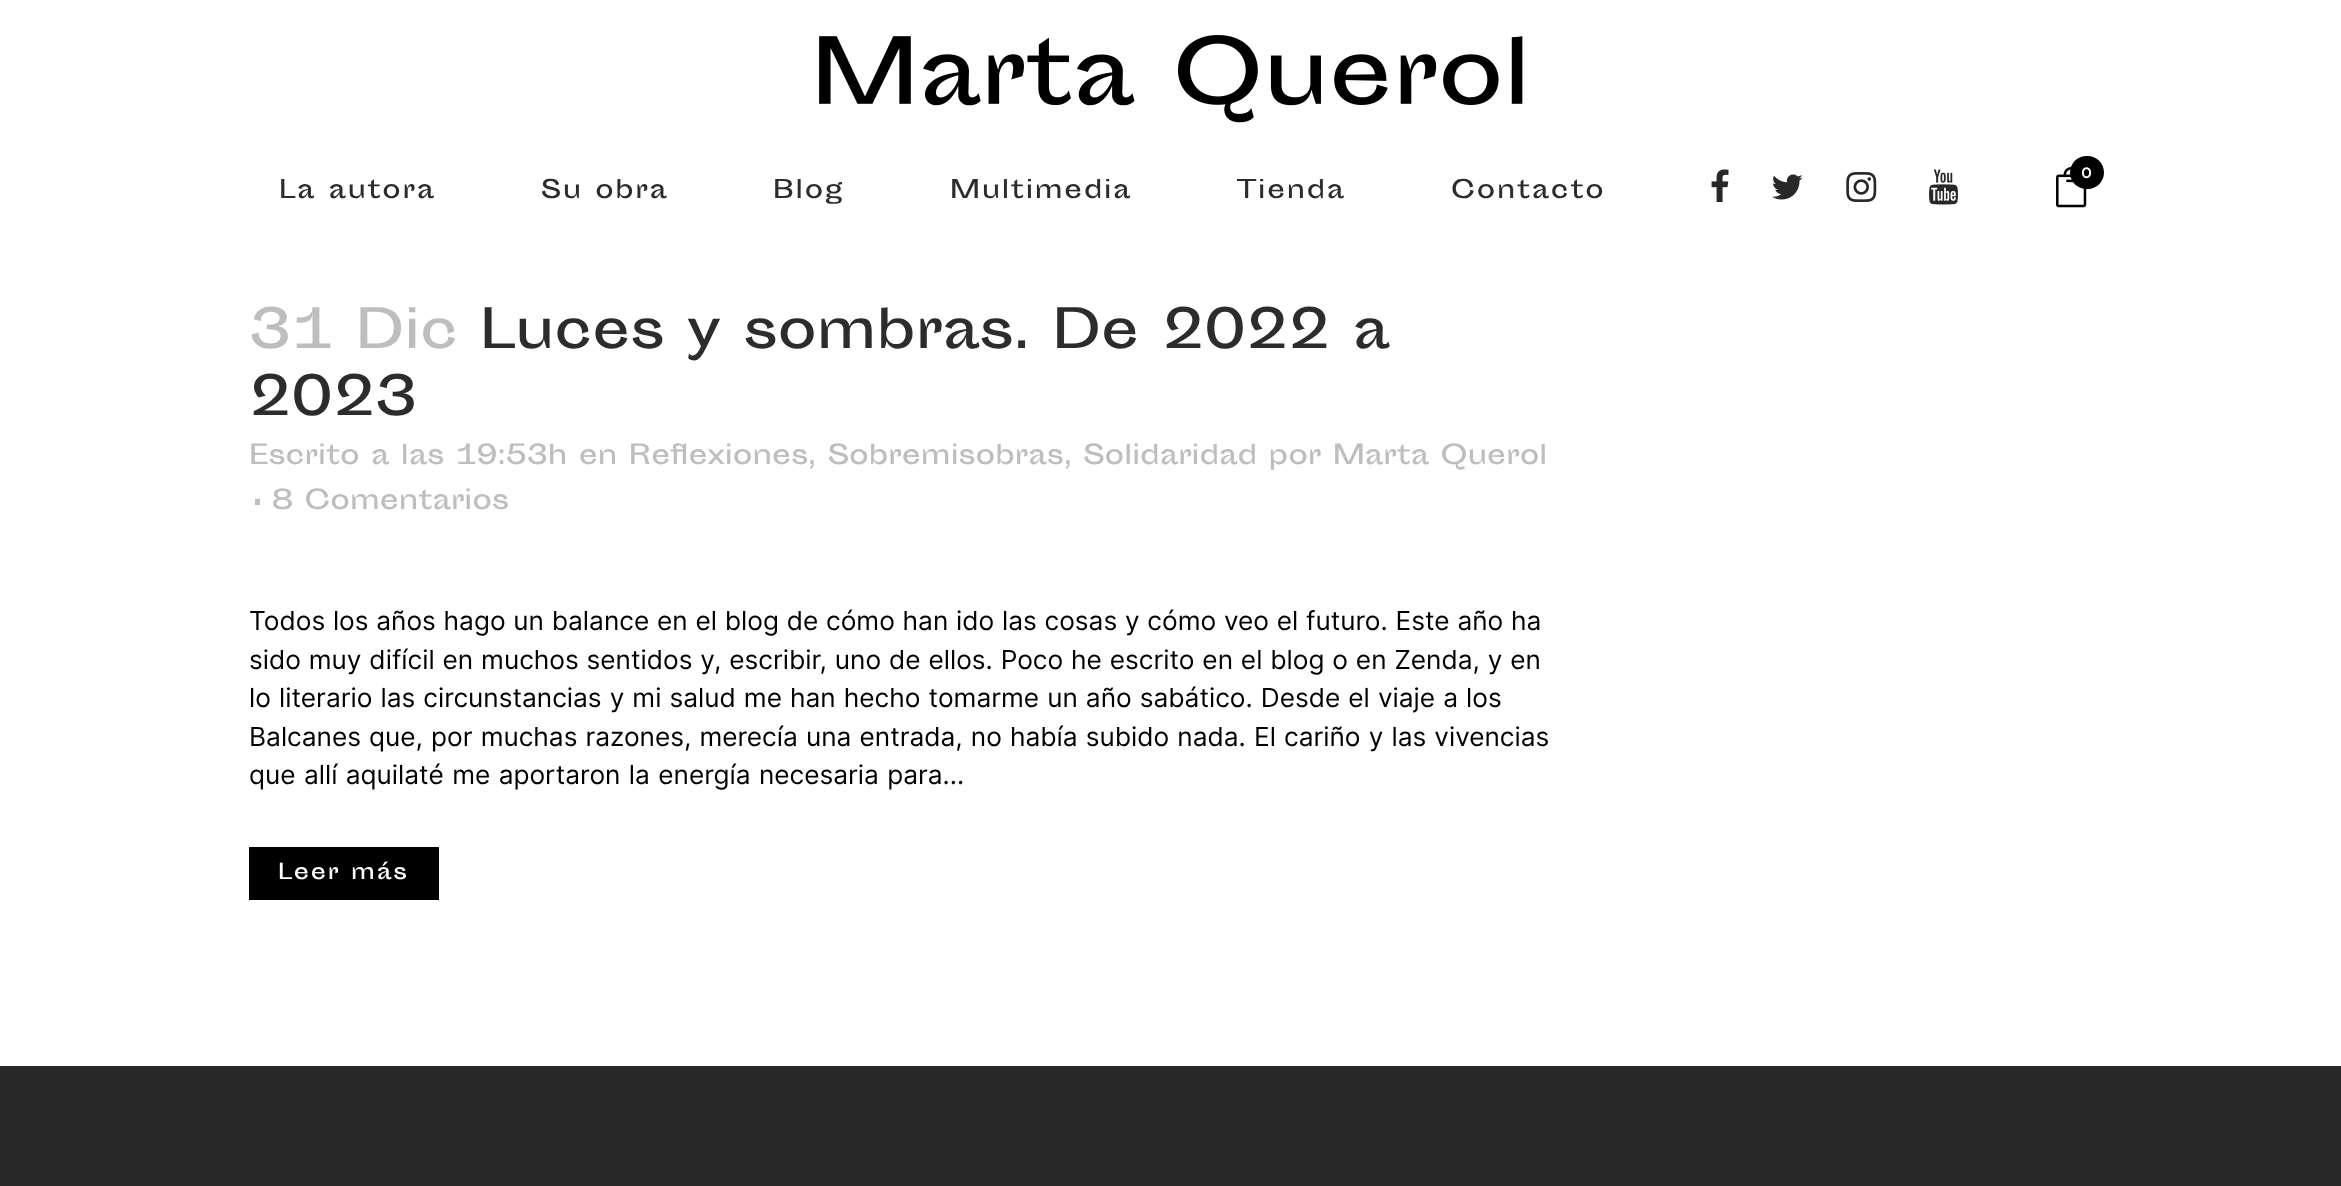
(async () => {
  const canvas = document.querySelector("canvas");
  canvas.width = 2341;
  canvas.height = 1186;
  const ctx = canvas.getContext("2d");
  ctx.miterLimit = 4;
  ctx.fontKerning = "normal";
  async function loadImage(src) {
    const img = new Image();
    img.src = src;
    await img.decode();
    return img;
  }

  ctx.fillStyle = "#ffffff";
  ctx.fillRect(0, 0, 2341, 1186);
  ctx.drawImage(await loadImage("img/1.png"), 819, 35, 704, 88);
  ctx.drawImage(await loadImage("img/2.png"), 1711, 169, 18, 33);
  ctx.drawImage(await loadImage("img/3.png"), 1772, 174, 31, 26);
  ctx.drawImage(await loadImage("img/4.png"), 1846, 172, 31, 30);
  ctx.drawImage(await loadImage("img/5.png"), 1929, 169, 29, 36);
  ctx.drawImage(await loadImage("img/6.png"), 2056, 167, 31, 41);
  ctx.fillStyle = "#000000";
  ctx.beginPath();
  ctx.roundRect(2070, 156, 34, 33, 16.5);
  ctx.fill();
  for (const [x, y, w, h, color] of [
    [255, 499, 5, 6, "#bebebe"],
    [249, 847, 190, 53, "#000000"],
    [0, 1066, 2341, 120, "#282828"],
  ]) {
    ctx.fillStyle = color;
    ctx.fillRect(x, y, w, h);
  }
  ctx.font = "600 18px Raleway";
  ctx.fillStyle = "#ffffff";
  ctx.fillText("0", 2081, 178);
  ctx.letterSpacing = "1.75px";
  ctx.font = "24.5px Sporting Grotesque";
  ctx.fillStyle = "#2c2c2c";
  for (const [text, x, y] of [
    ["La autora", 279, 198],
    ["Su obra", 541, 198],
    ["Blog", 773, 198],
    ["Multimedia", 950, 198],
    ["Tienda", 1237, 198],
    ["Contacto", 1451, 198],
  ]) {
    ctx.fillText(text, x, y);
  }
  ctx.letterSpacing = "0px";
  ctx.font = "52.5px Sporting Grotesque";
  ctx.fillStyle = "#bebebe";
  ctx.fillText("31 Dic", 249, 348);
  ctx.fillStyle = "#2c2c2c";
  ctx.fillText("Luces y sombras. De 2022 a", 480, 348);
  ctx.fillText("2023", 249, 415);
  ctx.font = "26.25px Sporting Grotesque";
  ctx.fillStyle = "#bebebe";
  ctx.fillText("Escrito a las 19:53h en Reflexiones, Sobremisobras, Solidaridad por Marta Querol", 249, 464);
  ctx.fillText("8 Comentarios", 272, 509);
  ctx.wordSpacing = "0.4px";
  ctx.font = "26.25px Inter";
  ctx.fillStyle = "#000000";
  ctx.fillText("Todos los años hago un balance en el blog de cómo han ido las cosas y cómo veo el futuro. Este año ha", 249, 630);
  ctx.wordSpacing = "0.5px";
  ctx.fillText("sido muy difícil en muchos sentidos y, escribir, uno de ellos. Poco he escrito en el blog o en Zenda, y en", 249, 669);
  ctx.wordSpacing = "0.7px";
  ctx.fillText("lo literario las circunstancias y mi salud me han hecho tomarme un año sabático. Desde el viaje a los", 249, 707);
  ctx.wordSpacing = "0.75px";
  ctx.fillText("Balcanes que, por muchas razones, merecía una entrada, no había subido nada. El cariño y las vivencias", 249, 746);
  ctx.wordSpacing = "1px";
  ctx.fillText("que allí aquilaté me aportaron la energía necesaria para...", 249, 784);
  ctx.letterSpacing = "1.75px";
  ctx.wordSpacing = "0px";
  ctx.font = "21px Sporting Grotesque";
  ctx.fillStyle = "#ffffff";
  ctx.fillText("Leer más", 278, 879);
})();
